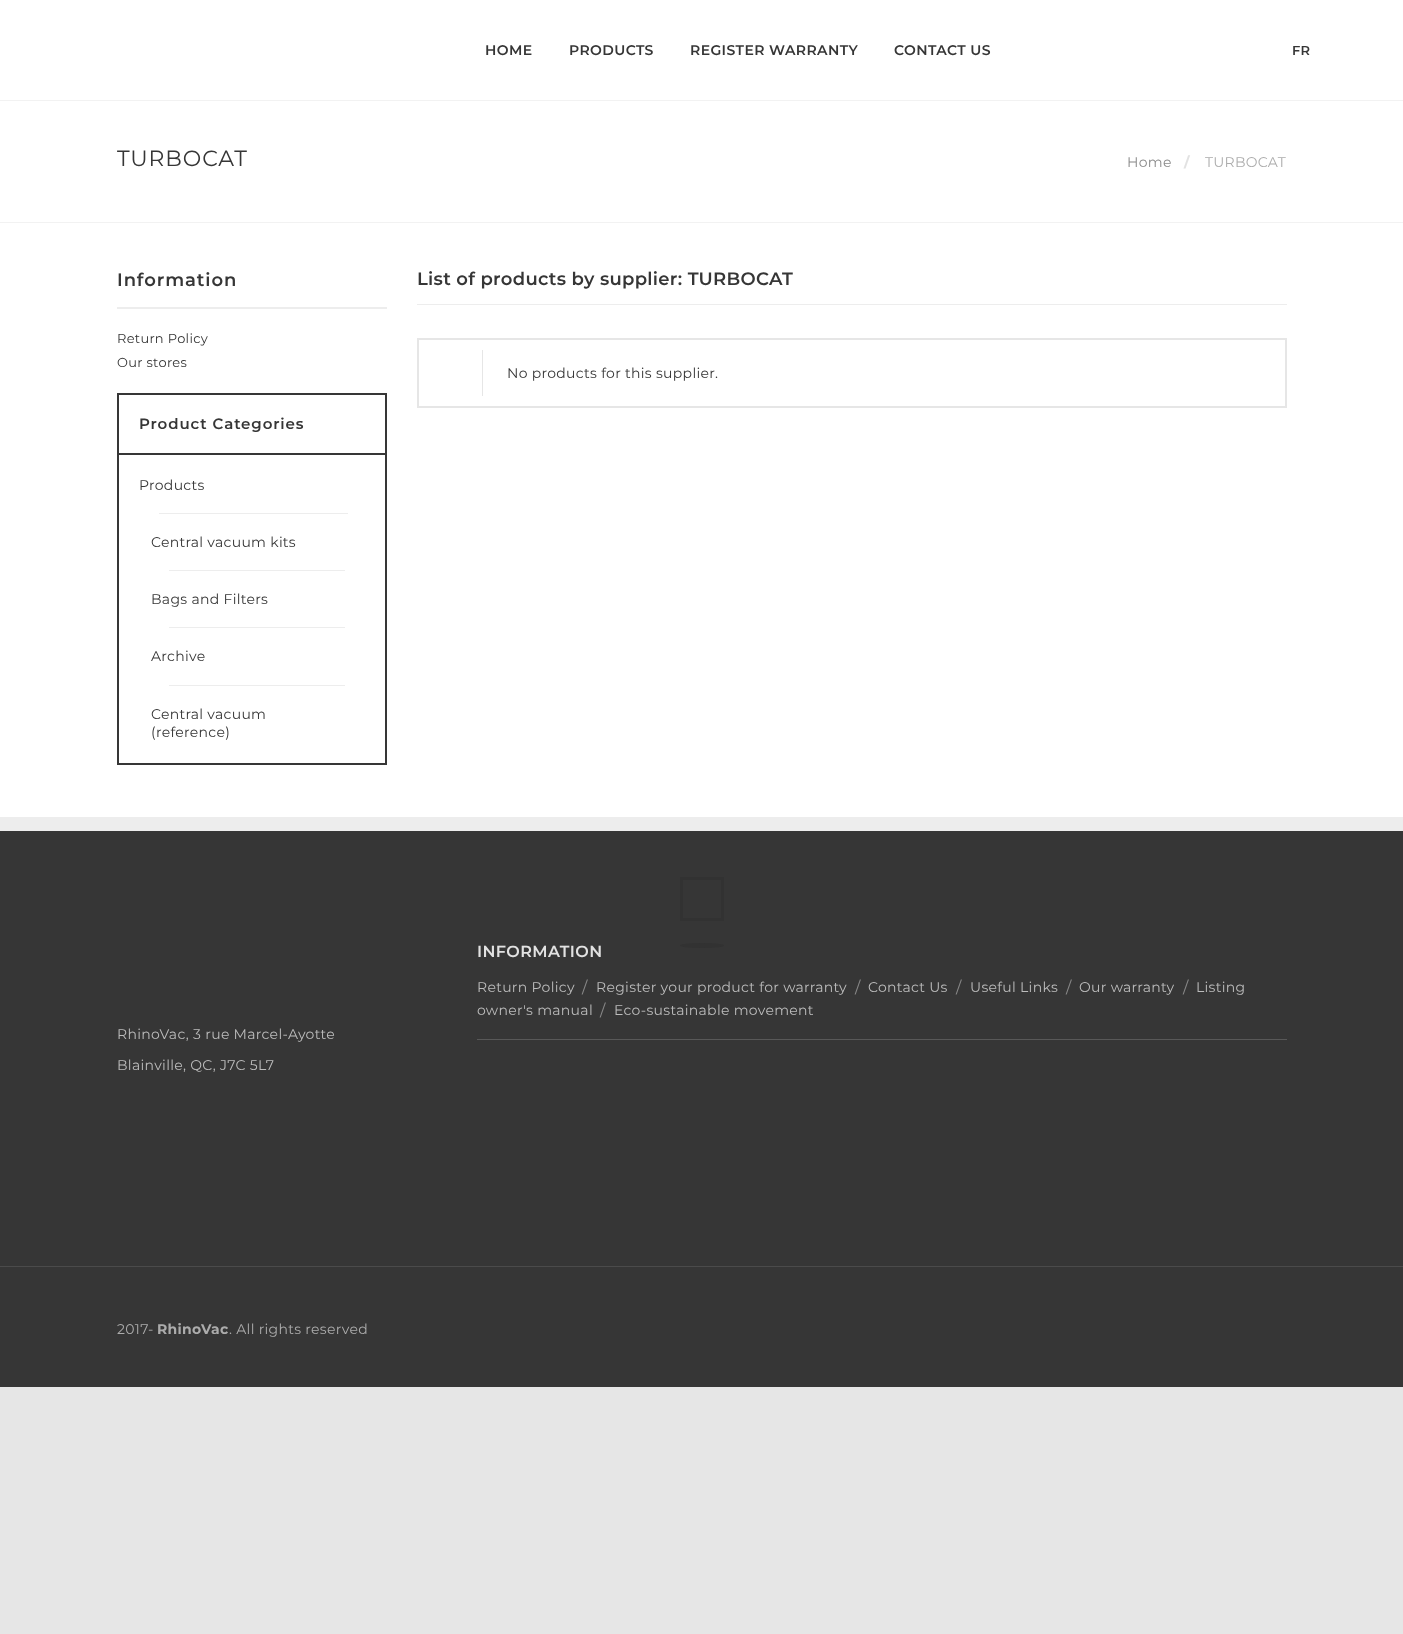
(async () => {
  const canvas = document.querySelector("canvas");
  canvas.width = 1403;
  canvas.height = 1634;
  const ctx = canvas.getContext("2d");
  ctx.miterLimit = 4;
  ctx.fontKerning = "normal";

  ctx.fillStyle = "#e6e6e6";
  ctx.fillRect(0, 0, 1403, 1634);
  for (const [x, y, w, h, color] of [
    [0, 0, 1403, 100, "#ffffff"],
    [0, 101, 1403, 121, "#ffffff"],
    [0, 100, 1403, 1, "#f2f2f2"],
    [0, 222, 1403, 1, "#f2f2f2"],
    [0, 223, 1403, 594, "#ffffff"],
    [117, 307, 270, 2, "#ededed"],
  ]) {
    ctx.fillStyle = color;
    ctx.fillRect(x, y, w, h);
  }
  ctx.strokeStyle = "#363636";
  ctx.lineWidth = 2;
  ctx.strokeRect(118, 394, 268, 370);
  for (const [x, y, w, h, color] of [
    [119, 453, 266, 2, "#363636"],
    [159, 513, 189, 1, "#ededed"],
    [169, 570, 176, 1, "#ededed"],
    [169, 627, 176, 1, "#ededed"],
    [169, 685, 176, 1, "#ededed"],
    [417, 304, 870, 1, "#ededed"],
  ]) {
    ctx.fillStyle = color;
    ctx.fillRect(x, y, w, h);
  }
  ctx.strokeStyle = "#e6e6e6";
  ctx.strokeRect(418, 339, 868, 68);
  ctx.fillStyle = "#e6e6e6";
  ctx.fillRect(482, 350, 1, 46);
  ctx.fillStyle = "#363636";
  ctx.fillRect(0, 831, 1403, 556);
  ctx.strokeStyle = "#323232";
  ctx.lineWidth = 3;
  ctx.strokeRect(681.5, 878.5, 41, 41);
  ctx.fillStyle = "#323232";
  ctx.beginPath();
  ctx.ellipse(702, 945.5, 22, 2.5, 0, 0, Math.PI * 2);
  ctx.fill();
  for (const [x, y, w, h, color] of [
    [0, 817, 1403, 14, "#ededed"],
    [477, 1039, 810, 1, "#585858"],
    [0, 1266, 1403, 1, "#4b4b4b"],
  ]) {
    ctx.fillStyle = color;
    ctx.fillRect(x, y, w, h);
  }
  ctx.letterSpacing = "0.4px";
  ctx.font = "600 14px Montserrat";
  ctx.fillStyle = "#363636";
  for (const [text, x, y] of [
    ["HOME", 485, 55],
    ["PRODUCTS", 569, 55],
    ["REGISTER WARRANTY", 690, 55],
    ["CONTACT US", 894, 55],
  ]) {
    ctx.fillText(text, x, y);
  }
  ctx.letterSpacing = "0.3px";
  ctx.font = "600 13px Montserrat";
  ctx.fillText("FR", 1292, 55);
  ctx.letterSpacing = "0.9px";
  ctx.font = "22px Montserrat";
  ctx.fillText("TURBOCAT", 117, 166);
  ctx.letterSpacing = "0.3px";
  ctx.font = "14px Montserrat";
  ctx.fillStyle = "#8a8a8a";
  ctx.fillText("Home", 1127, 167);
  ctx.font = "bold 14px Montserrat";
  ctx.fillStyle = "#e2e2e2";
  ctx.fillText("/", 1184, 167);
  ctx.font = "14px Montserrat";
  ctx.fillStyle = "#acacac";
  ctx.fillText("TURBOCAT", 1205, 167);
  ctx.letterSpacing = "0.9px";
  ctx.font = "600 18px Montserrat";
  ctx.fillStyle = "#363636";
  ctx.fillText("Information", 117, 286);
  ctx.letterSpacing = "0.3px";
  ctx.font = "13px Montserrat";
  ctx.fillText("Return Policy", 117, 343);
  ctx.fillText("Our stores", 117, 367);
  ctx.letterSpacing = "0.9px";
  ctx.font = "600 15px Montserrat";
  ctx.fillText("Product Categories", 139, 429);
  ctx.letterSpacing = "0.3px";
  ctx.font = "14px Montserrat";
  for (const [text, x, y] of [
    ["Products", 139, 490],
    ["Central vacuum kits", 151, 547],
    ["Bags and Filters", 151, 604],
    ["Archive", 151, 661],
    ["Central vacuum", 151, 719],
    ["(reference)", 151, 737],
  ]) {
    ctx.fillText(text, x, y);
  }
  ctx.font = "600 18px Montserrat";
  ctx.fillText("List of products by supplier: TURBOCAT", 417, 285);
  ctx.font = "14px Montserrat";
  ctx.fillText("No products for this supplier.", 507, 378);
  ctx.letterSpacing = "0.4px";
  ctx.font = "600 16px Montserrat";
  ctx.fillStyle = "#e2e2e2";
  ctx.fillText("INFORMATION", 477, 957);
  ctx.letterSpacing = "0.3px";
  ctx.font = "14px Montserrat";
  ctx.fillStyle = "#bcbcbc";
  ctx.fillText("Return Policy", 477, 992);
  ctx.font = "16px Montserrat";
  ctx.fillStyle = "#8a8a8a";
  ctx.fillText("/", 582, 993);
  ctx.font = "14px Montserrat";
  ctx.fillStyle = "#bcbcbc";
  ctx.fillText("Register your product for warranty", 596, 992);
  ctx.font = "16px Montserrat";
  ctx.fillStyle = "#8a8a8a";
  ctx.fillText("/", 855, 993);
  ctx.font = "14px Montserrat";
  ctx.fillStyle = "#bcbcbc";
  ctx.fillText("Contact Us", 868, 992);
  ctx.font = "16px Montserrat";
  ctx.fillStyle = "#8a8a8a";
  ctx.fillText("/", 956, 993);
  ctx.font = "14px Montserrat";
  ctx.fillStyle = "#bcbcbc";
  ctx.fillText("Useful Links", 970, 992);
  ctx.font = "16px Montserrat";
  ctx.fillStyle = "#8a8a8a";
  ctx.fillText("/", 1066, 993);
  ctx.font = "14px Montserrat";
  ctx.fillStyle = "#bcbcbc";
  ctx.fillText("Our warranty", 1079, 992);
  ctx.font = "16px Montserrat";
  ctx.fillStyle = "#8a8a8a";
  ctx.fillText("/", 1183, 993);
  ctx.font = "14px Montserrat";
  ctx.fillStyle = "#bcbcbc";
  ctx.fillText("Listing", 1196, 992);
  ctx.fillText("owner's manual", 477, 1015);
  ctx.font = "16px Montserrat";
  ctx.fillStyle = "#8a8a8a";
  ctx.fillText("/", 600, 1016);
  ctx.font = "14px Montserrat";
  ctx.fillStyle = "#bcbcbc";
  for (const [text, x, y] of [
    ["Eco-sustainable movement", 614, 1015],
    ["RhinoVac, 3 rue Marcel-Ayotte", 117, 1039],
    ["Blainville, QC, J7C 5L7", 117, 1070],
  ]) {
    ctx.fillText(text, x, y);
  }
  ctx.fillStyle = "#acacac";
  ctx.fillText("2017-", 117, 1334);
  ctx.font = "bold 14px Montserrat";
  ctx.fillText("RhinoVac", 157, 1334);
  ctx.font = "14px Montserrat";
  ctx.fillText(". All rights reserved", 229, 1334);
})();
